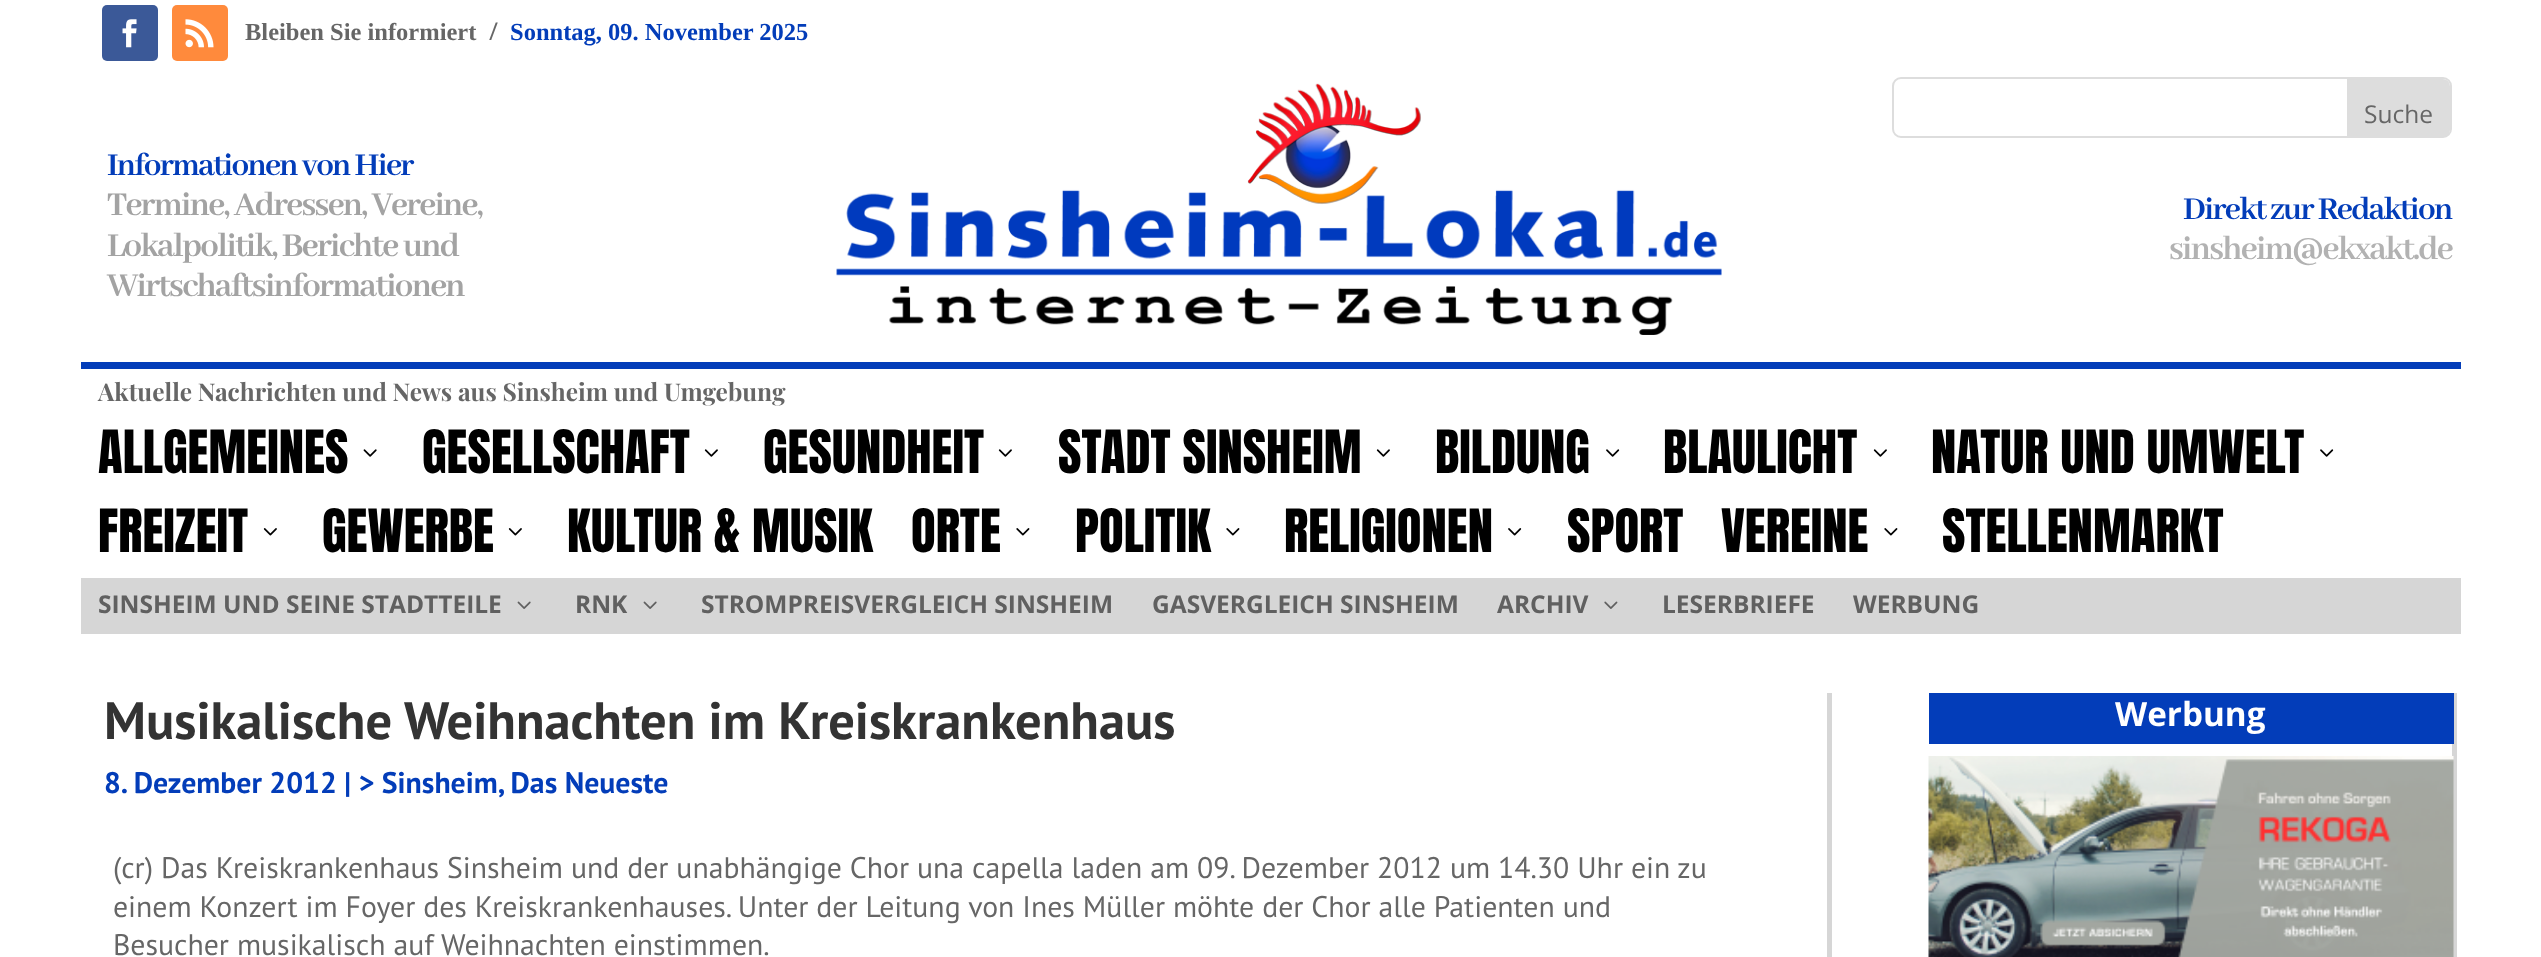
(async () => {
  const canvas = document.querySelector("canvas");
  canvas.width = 2541;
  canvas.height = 957;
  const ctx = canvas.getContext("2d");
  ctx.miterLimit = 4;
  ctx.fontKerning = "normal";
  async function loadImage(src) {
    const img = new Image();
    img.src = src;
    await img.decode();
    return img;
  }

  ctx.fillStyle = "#ffffff";
  ctx.fillRect(0, 0, 2541, 957);
  ctx.fillStyle = "#3b5998";
  ctx.beginPath();
  ctx.roundRect(102, 5, 56, 56, 5);
  ctx.fill();
  ctx.drawImage(await loadImage("img/1.png"), 122, 19, 15, 29);
  ctx.fillStyle = "#ff8a3c";
  ctx.beginPath();
  ctx.roundRect(172, 5, 56, 56, 5);
  ctx.fill();
  ctx.drawImage(await loadImage("img/2.png"), 185, 19, 29, 29);
  ctx.drawImage(await loadImage("img/3.png"), 836, 83, 886, 252);
  ctx.beginPath();
  ctx.roundRect(1893, 78, 558, 59, 8);
  ctx.strokeStyle = "#dddddd";
  ctx.lineWidth = 2;
  ctx.stroke();
  ctx.fillStyle = "#dddddd";
  ctx.beginPath();
  ctx.roundRect(2347, 79, 103, 58, [0, 7, 7, 0]);
  ctx.fill();
  ctx.fillStyle = "#033db9";
  ctx.fillRect(81, 362, 2380, 7);
  ctx.drawImage(await loadImage("img/4.png"), 363, 449, 14, 8);
  ctx.drawImage(await loadImage("img/5.png"), 704, 449, 14, 8);
  ctx.drawImage(await loadImage("img/5.png"), 998, 449, 14, 8);
  ctx.drawImage(await loadImage("img/5.png"), 1376, 449, 14, 8);
  ctx.drawImage(await loadImage("img/6.png"), 1606, 449, 14, 8);
  ctx.drawImage(await loadImage("img/5.png"), 1873, 449, 14, 8);
  ctx.drawImage(await loadImage("img/6.png"), 2320, 449, 14, 8);
  ctx.drawImage(await loadImage("img/7.png"), 263, 528, 14, 8);
  ctx.drawImage(await loadImage("img/7.png"), 508, 528, 14, 8);
  ctx.drawImage(await loadImage("img/8.png"), 1016, 528, 14, 8);
  ctx.drawImage(await loadImage("img/8.png"), 1226, 528, 14, 8);
  ctx.drawImage(await loadImage("img/9.png"), 1508, 528, 14, 8);
  ctx.drawImage(await loadImage("img/8.png"), 1884, 528, 14, 8);
  ctx.fillStyle = "#d6d6d6";
  ctx.fillRect(81, 578, 2380, 56);
  ctx.drawImage(await loadImage("img/10.png"), 517, 601, 14, 8);
  ctx.drawImage(await loadImage("img/10.png"), 643, 601, 14, 8);
  ctx.drawImage(await loadImage("img/11.png"), 1604, 601, 14, 8);
  for (const [x, y, w, h, color] of [
    [1827, 693, 5, 264, "#d6d6d6"],
    [2452, 693, 5, 264, "#d6d6d6"],
    [1929, 693, 525, 51, "#033db9"],
  ]) {
    ctx.fillStyle = color;
    ctx.fillRect(x, y, w, h);
  }
  ctx.drawImage(await loadImage("img/12.png"), 1928, 756, 526, 201);
  ctx.font = "bold 24.5px Liberation Serif";
  ctx.fillStyle = "#666666";
  ctx.fillText("Bleiben Sie informiert", 245, 40);
  ctx.font = "24.5px Open Sans";
  ctx.fillText("/", 489, 40);
  ctx.font = "bold 24.5px Liberation Serif";
  ctx.fillStyle = "#033db9";
  ctx.fillText("Sonntag, 09. November 2025", 510, 40);
  ctx.letterSpacing = "-1.75px";
  ctx.font = "bold 35px Abhaya Libre";
  ctx.fillText("Informationen von Hier", 107, 175);
  ctx.font = "bold 36.75px Abhaya Libre";
  ctx.fillStyle = "#a3a3a3";
  for (const [text, x, y] of [
    ["Termine, Adressen, Vereine,", 107, 215],
    ["Lokalpolitik, Berichte und", 107, 256],
    ["Wirtschaftsinformationen", 107, 296],
  ]) {
    ctx.fillText(text, x, y);
  }
  ctx.letterSpacing = "0px";
  ctx.font = "24.5px Open Sans";
  ctx.fillStyle = "#666666";
  ctx.fillText("Suche", 2364, 123);
  ctx.letterSpacing = "-1.75px";
  ctx.font = "bold 35px Abhaya Libre";
  ctx.fillStyle = "#033db9";
  ctx.fillText("Direkt zur Redaktion", 2183, 219);
  ctx.font = "bold 36.75px Abhaya Libre";
  ctx.fillStyle = "#b2b2b2";
  ctx.fillText("sinsheim@ekxakt.de", 2169, 259);
  ctx.letterSpacing = "0px";
  ctx.font = "bold 24.5px Playfair Display";
  ctx.fillStyle = "#666666";
  ctx.fillText("Aktuelle Nachrichten und News aus Sinsheim und Umgebung", 98, 401);
  ctx.font = "50.75px Anton";
  ctx.fillStyle = "#000000";
  for (const [text, x, y] of [
    ["ALLGEMEINES", 98, 473],
    ["GESELLSCHAFT", 422, 473],
    ["GESUNDHEIT", 763, 473],
    ["STADT SINSHEIM", 1058, 473],
    ["BILDUNG", 1435, 473],
    ["BLAULICHT", 1663, 473],
    ["NATUR UND UMWELT", 1931, 473],
    ["FREIZEIT", 98, 552],
    ["GEWERBE", 322, 552],
    ["KULTUR & MUSIK", 567, 552],
    ["ORTE", 911, 552],
    ["POLITIK", 1075, 552],
    ["RELIGIONEN", 1284, 552],
    ["SPORT", 1567, 552],
    ["VEREINE", 1721, 552],
    ["STELLENMARKT", 1942, 552],
  ]) {
    ctx.fillText(text, x, y);
  }
  ctx.font = "bold 24.5px Open Sans";
  ctx.fillStyle = "#606060";
  for (const [text, x, y] of [
    ["SINSHEIM UND SEINE STADTTEILE", 98, 613],
    ["RNK", 575, 613],
    ["STROMPREISVERGLEICH SINSHEIM", 701, 613],
    ["GASVERGLEICH SINSHEIM", 1152, 613],
    ["ARCHIV", 1497, 613],
    ["LESERBRIEFE", 1662, 613],
    ["WERBUNG", 1853, 613],
  ]) {
    ctx.fillText(text, x, y);
  }
  ctx.font = "bold 52.5px PT Sans";
  ctx.fillStyle = "#333333";
  ctx.fillText("Musikalische Weihnachten im Kreiskrankenhaus", 104, 739);
  ctx.font = "bold 29.75px PT Sans";
  ctx.fillStyle = "#033db9";
  ctx.fillText("8. Dezember 2012 | > Sinsheim, Das Neueste", 104, 793);
  ctx.font = "29.75px PT Sans";
  ctx.fillStyle = "#666666";
  for (const [text, x, y] of [
    ["(cr) Das Kreiskrankenhaus Sinsheim und der unabhängige Chor una capella laden am 09. Dezember 2012 um 14.30 Uhr ein zu", 113, 878],
    ["einem Konzert im Foyer des Kreiskrankenhauses. Unter der Leitung von Ines Müller möhte der Chor alle Patienten und", 113, 917],
    ["Besucher musikalisch auf Weihnachten einstimmen.", 113, 955],
  ]) {
    ctx.fillText(text, x, y);
  }
  ctx.font = "bold 33.25px Open Sans";
  ctx.fillStyle = "#ffffff";
  ctx.fillText("Werbung", 2115, 726);
})();
